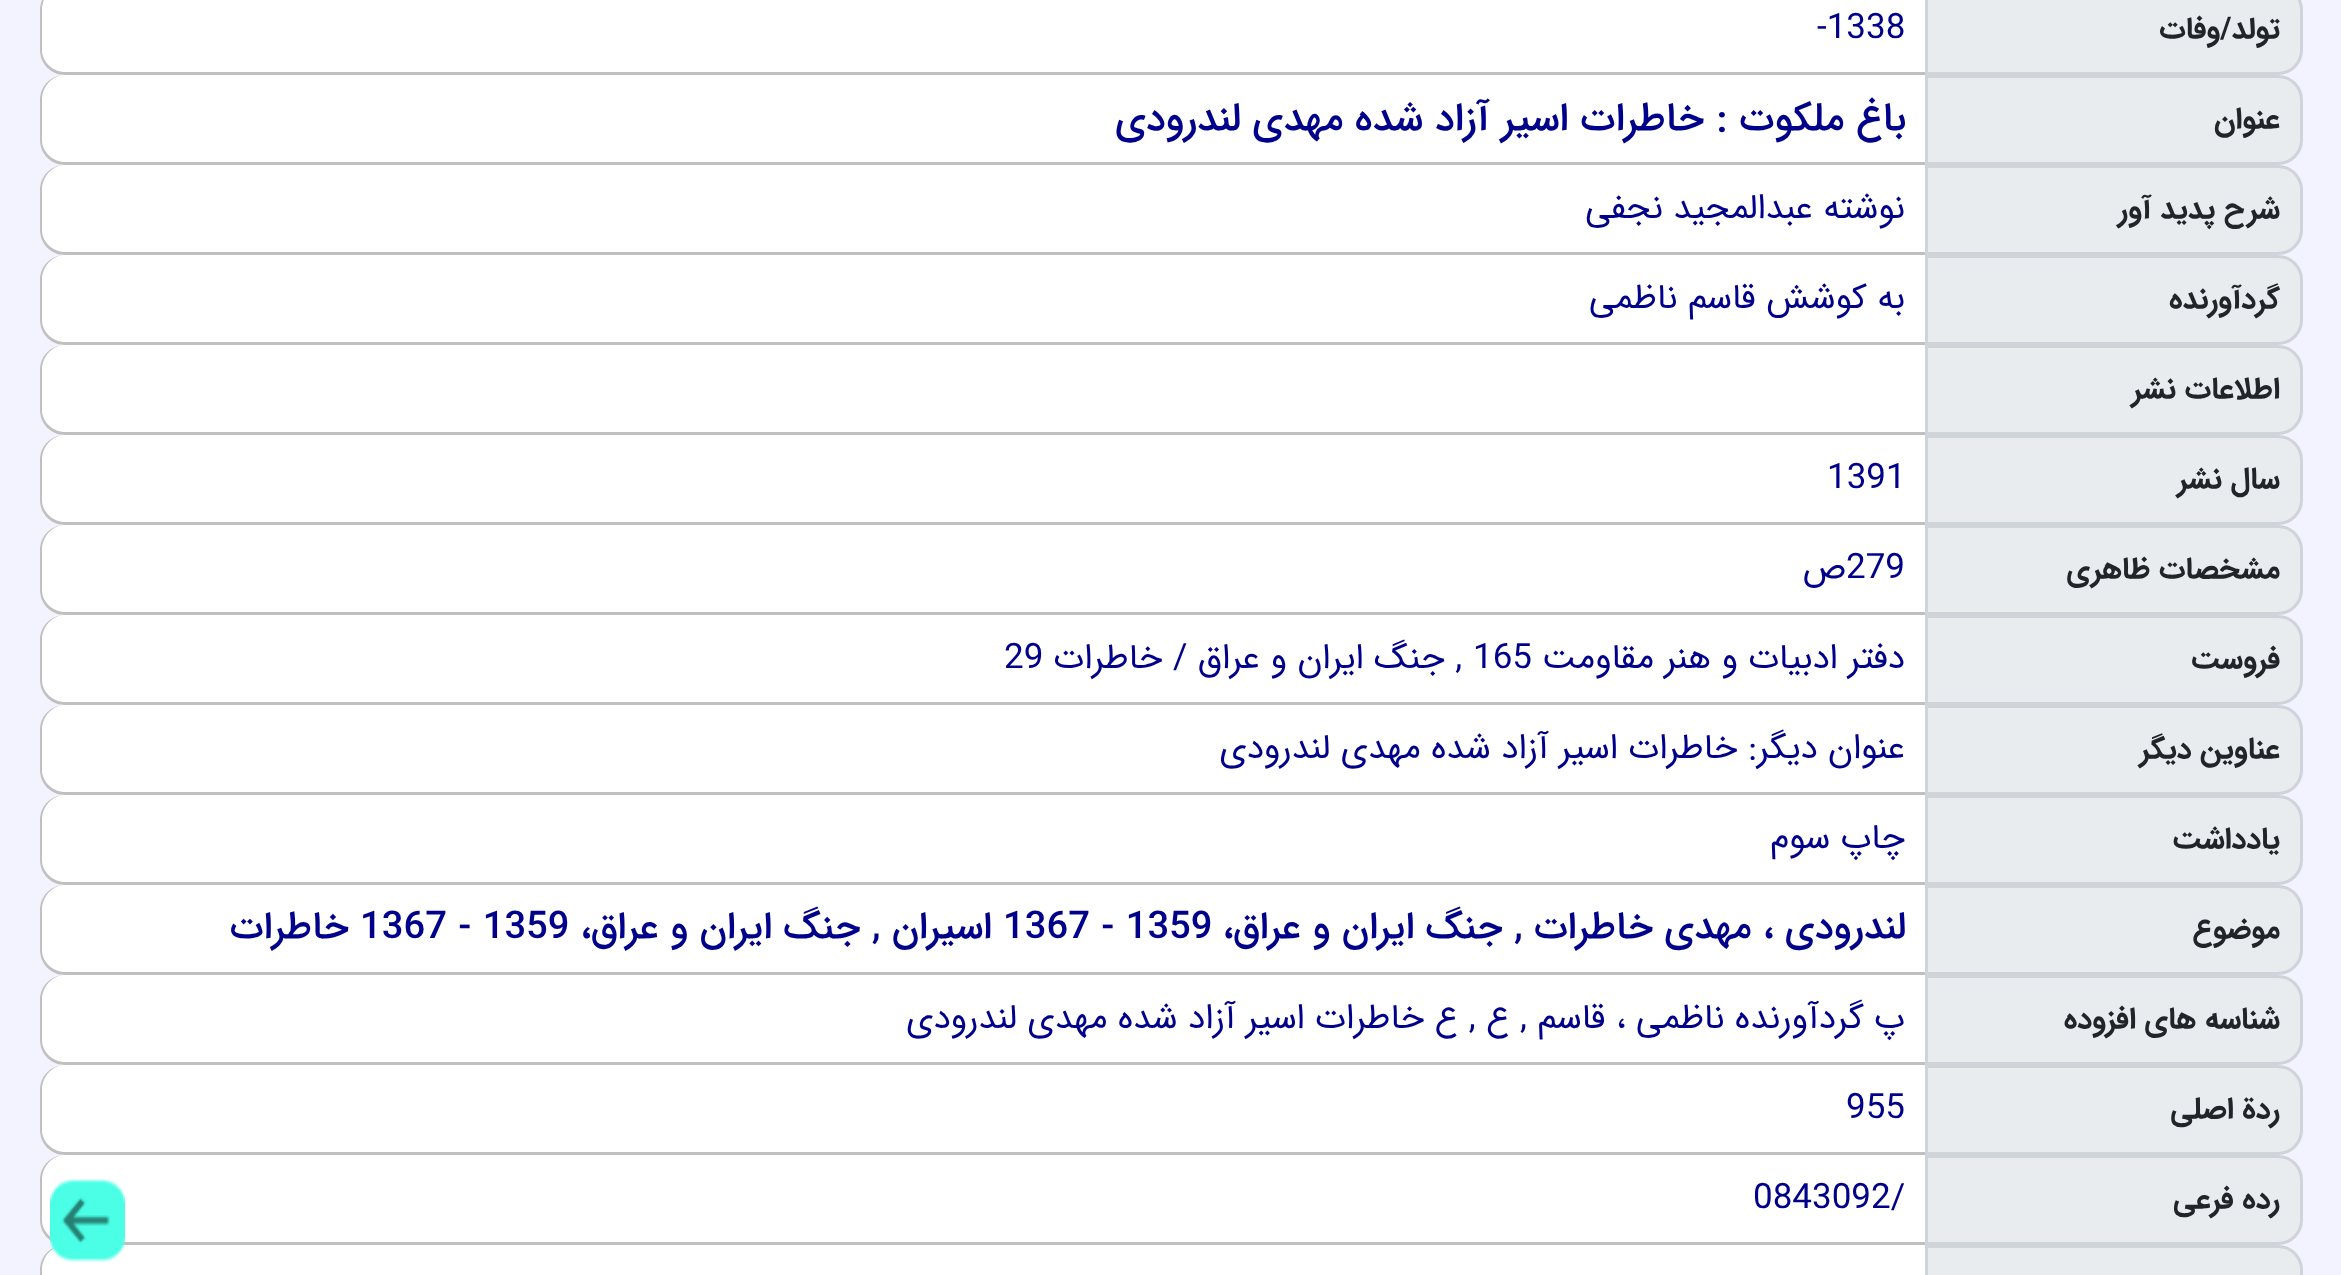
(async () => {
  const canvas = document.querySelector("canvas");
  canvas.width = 2341;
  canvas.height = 1275;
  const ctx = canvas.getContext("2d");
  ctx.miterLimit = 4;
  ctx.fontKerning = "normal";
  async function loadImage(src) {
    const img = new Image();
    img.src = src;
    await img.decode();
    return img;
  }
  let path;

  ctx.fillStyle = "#f3f3ff";
  ctx.fillRect(0, 0, 2341, 1275);
  ctx.fillStyle = "#e9ecef";
  path = new Path2D("M1926.5-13.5H2278C2291-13.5 2301.5-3 2301.5 10V50C2301.5 63 2291 73.5 2278 73.5H1926.5Z");
  ctx.fill(path);
  ctx.strokeStyle = "#ced4da";
  ctx.lineWidth = 3;
  ctx.stroke(path);
  ctx.fillStyle = "#ffffff";
  path = new Path2D("M65-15H1925V75H65C51 75 40 64 40 50V10C40-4 51-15 65-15Z");
  ctx.fill(path);
  ctx.fillStyle = "#c0c0c0";
  path = new Path2D("M65-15H1925V75H65C51 75 40 64 40 50V10C40-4 51-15 65-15ZM65-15H1925V72H65C53 72 42 62 42 50V10C42-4 53-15 65-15Z");
  ctx.fill(path, "evenodd");
  ctx.fillStyle = "#e9ecef";
  ctx.beginPath();
  ctx.roundRect(1926.5, 76.5, 375, 87, [0, 23.5, 23.5, 0]);
  ctx.fill();
  ctx.stroke();
  ctx.fillStyle = "#ffffff";
  ctx.beginPath();
  ctx.roundRect(40, 75, 1885, 90, [25, 0, 0, 25]);
  ctx.fill();
  ctx.fillStyle = "#c0c0c0";
  path = new Path2D("M65 75H1925V165H65C51 165 40 154 40 140V100C40 86 51 75 65 75ZM65 75H1925V162H65C53 162 42 152 42 140V100C42 86 53 75 65 75Z");
  ctx.fill(path, "evenodd");
  ctx.fillStyle = "#e9ecef";
  ctx.beginPath();
  ctx.roundRect(1926.5, 166.5, 375, 87, [0, 23.5, 23.5, 0]);
  ctx.fill();
  ctx.stroke();
  ctx.fillStyle = "#ffffff";
  ctx.beginPath();
  ctx.roundRect(40, 165, 1885, 90, [25, 0, 0, 25]);
  ctx.fill();
  ctx.fillStyle = "#c0c0c0";
  path = new Path2D("M65 165H1925V255H65C51 255 40 244 40 230V190C40 176 51 165 65 165ZM65 165H1925V252H65C53 252 42 242 42 230V190C42 176 53 165 65 165Z");
  ctx.fill(path, "evenodd");
  ctx.fillStyle = "#e9ecef";
  ctx.beginPath();
  ctx.roundRect(1926.5, 256.5, 375, 87, [0, 23.5, 23.5, 0]);
  ctx.fill();
  ctx.stroke();
  ctx.fillStyle = "#ffffff";
  ctx.beginPath();
  ctx.roundRect(40, 255, 1885, 90, [25, 0, 0, 25]);
  ctx.fill();
  ctx.fillStyle = "#c0c0c0";
  path = new Path2D("M65 255H1925V345H65C51 345 40 334 40 320V280C40 266 51 255 65 255ZM65 255H1925V342H65C53 342 42 332 42 320V280C42 266 53 255 65 255Z");
  ctx.fill(path, "evenodd");
  ctx.fillStyle = "#e9ecef";
  ctx.beginPath();
  ctx.roundRect(1926.5, 346.5, 375, 87, [0, 23.5, 23.5, 0]);
  ctx.fill();
  ctx.stroke();
  ctx.fillStyle = "#ffffff";
  ctx.beginPath();
  ctx.roundRect(40, 345, 1885, 90, [25, 0, 0, 25]);
  ctx.fill();
  ctx.fillStyle = "#c0c0c0";
  path = new Path2D("M65 345H1925V435H65C51 435 40 424 40 410V370C40 356 51 345 65 345ZM65 345H1925V432H65C53 432 42 422 42 410V370C42 356 53 345 65 345Z");
  ctx.fill(path, "evenodd");
  ctx.fillStyle = "#e9ecef";
  ctx.beginPath();
  ctx.roundRect(1926.5, 436.5, 375, 87, [0, 23.5, 23.5, 0]);
  ctx.fill();
  ctx.stroke();
  ctx.fillStyle = "#ffffff";
  ctx.beginPath();
  ctx.roundRect(40, 435, 1885, 90, [25, 0, 0, 25]);
  ctx.fill();
  ctx.fillStyle = "#c0c0c0";
  path = new Path2D("M65 435H1925V525H65C51 525 40 514 40 500V460C40 446 51 435 65 435ZM65 435H1925V522H65C53 522 42 512 42 500V460C42 446 53 435 65 435Z");
  ctx.fill(path, "evenodd");
  ctx.fillStyle = "#e9ecef";
  ctx.beginPath();
  ctx.roundRect(1926.5, 526.5, 375, 87, [0, 23.5, 23.5, 0]);
  ctx.fill();
  ctx.stroke();
  ctx.fillStyle = "#ffffff";
  ctx.beginPath();
  ctx.roundRect(40, 525, 1885, 90, [25, 0, 0, 25]);
  ctx.fill();
  ctx.fillStyle = "#c0c0c0";
  path = new Path2D("M65 525H1925V615H65C51 615 40 604 40 590V550C40 536 51 525 65 525ZM65 525H1925V612H65C53 612 42 602 42 590V550C42 536 53 525 65 525Z");
  ctx.fill(path, "evenodd");
  ctx.fillStyle = "#e9ecef";
  ctx.beginPath();
  ctx.roundRect(1926.5, 616.5, 375, 87, [0, 23.5, 23.5, 0]);
  ctx.fill();
  ctx.stroke();
  ctx.fillStyle = "#ffffff";
  ctx.beginPath();
  ctx.roundRect(40, 615, 1885, 90, [25, 0, 0, 25]);
  ctx.fill();
  ctx.fillStyle = "#c0c0c0";
  path = new Path2D("M65 615H1925V705H65C51 705 40 694 40 680V640C40 626 51 615 65 615ZM65 615H1925V702H65C53 702 42 692 42 680V640C42 626 53 615 65 615Z");
  ctx.fill(path, "evenodd");
  ctx.fillStyle = "#e9ecef";
  ctx.beginPath();
  ctx.roundRect(1926.5, 706.5, 375, 87, [0, 23.5, 23.5, 0]);
  ctx.fill();
  ctx.stroke();
  ctx.fillStyle = "#ffffff";
  ctx.beginPath();
  ctx.roundRect(40, 705, 1885, 90, [25, 0, 0, 25]);
  ctx.fill();
  ctx.fillStyle = "#c0c0c0";
  path = new Path2D("M65 705H1925V795H65C51 795 40 784 40 770V730C40 716 51 705 65 705ZM65 705H1925V792H65C53 792 42 782 42 770V730C42 716 53 705 65 705Z");
  ctx.fill(path, "evenodd");
  ctx.fillStyle = "#e9ecef";
  ctx.beginPath();
  ctx.roundRect(1926.5, 796.5, 375, 87, [0, 23.5, 23.5, 0]);
  ctx.fill();
  ctx.stroke();
  ctx.fillStyle = "#ffffff";
  ctx.beginPath();
  ctx.roundRect(40, 795, 1885, 90, [25, 0, 0, 25]);
  ctx.fill();
  ctx.fillStyle = "#c0c0c0";
  path = new Path2D("M65 795H1925V885H65C51 885 40 874 40 860V820C40 806 51 795 65 795ZM65 795H1925V882H65C53 882 42 872 42 860V820C42 806 53 795 65 795Z");
  ctx.fill(path, "evenodd");
  ctx.fillStyle = "#e9ecef";
  ctx.beginPath();
  ctx.roundRect(1926.5, 886.5, 375, 87, [0, 23.5, 23.5, 0]);
  ctx.fill();
  ctx.stroke();
  ctx.fillStyle = "#ffffff";
  ctx.beginPath();
  ctx.roundRect(40, 885, 1885, 90, [25, 0, 0, 25]);
  ctx.fill();
  ctx.fillStyle = "#c0c0c0";
  path = new Path2D("M65 885H1925V975H65C51 975 40 964 40 950V910C40 896 51 885 65 885ZM65 885H1925V972H65C53 972 42 962 42 950V910C42 896 53 885 65 885Z");
  ctx.fill(path, "evenodd");
  ctx.fillStyle = "#e9ecef";
  ctx.beginPath();
  ctx.roundRect(1926.5, 976.5, 375, 87, [0, 23.5, 23.5, 0]);
  ctx.fill();
  ctx.stroke();
  ctx.fillStyle = "#ffffff";
  ctx.beginPath();
  ctx.roundRect(40, 975, 1885, 90, [25, 0, 0, 25]);
  ctx.fill();
  ctx.fillStyle = "#c0c0c0";
  path = new Path2D("M65 975H1925V1065H65C51 1065 40 1054 40 1040V1000C40 986 51 975 65 975ZM65 975H1925V1062H65C53 1062 42 1052 42 1040V1000C42 986 53 975 65 975Z");
  ctx.fill(path, "evenodd");
  ctx.fillStyle = "#e9ecef";
  ctx.beginPath();
  ctx.roundRect(1926.5, 1066.5, 375, 87, [0, 23.5, 23.5, 0]);
  ctx.fill();
  ctx.stroke();
  ctx.fillStyle = "#ffffff";
  ctx.beginPath();
  ctx.roundRect(40, 1065, 1885, 90, [25, 0, 0, 25]);
  ctx.fill();
  ctx.fillStyle = "#c0c0c0";
  path = new Path2D("M65 1065H1925V1155H65C51 1155 40 1144 40 1130V1090C40 1076 51 1065 65 1065ZM65 1065H1925V1152H65C53 1152 42 1142 42 1130V1090C42 1076 53 1065 65 1065Z");
  ctx.fill(path, "evenodd");
  ctx.fillStyle = "#e9ecef";
  ctx.beginPath();
  ctx.roundRect(1926.5, 1156.5, 375, 87, [0, 23.5, 23.5, 0]);
  ctx.fill();
  ctx.stroke();
  ctx.fillStyle = "#ffffff";
  ctx.beginPath();
  ctx.roundRect(40, 1155, 1885, 90, [25, 0, 0, 25]);
  ctx.fill();
  ctx.fillStyle = "#c0c0c0";
  path = new Path2D("M65 1155H1925V1245H65C51 1245 40 1234 40 1220V1180C40 1166 51 1155 65 1155ZM65 1155H1925V1242H65C53 1242 42 1232 42 1220V1180C42 1166 53 1155 65 1155Z");
  ctx.fill(path, "evenodd");
  ctx.fillStyle = "#e9ecef";
  path = new Path2D("M1926.5 1246.5H2278C2291 1246.5 2301.5 1257 2301.5 1270V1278C2301.5 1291 2291 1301.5 2278 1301.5H1926.5Z");
  ctx.fill(path);
  ctx.stroke(path);
  ctx.fillStyle = "#ffffff";
  path = new Path2D("M65 1245H1925V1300H65C51 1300 40 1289 40 1275V1270C40 1256 51 1245 65 1245Z");
  ctx.fill(path);
  ctx.fillStyle = "#c0c0c0";
  path = new Path2D("M65 1245H1925V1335H65C51 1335 40 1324 40 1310V1270C40 1256 51 1245 65 1245ZM65 1245H1925V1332H65C53 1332 42 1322 42 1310V1270C42 1256 53 1245 65 1245Z");
  ctx.fill(path, "evenodd");
  ctx.drawImage(await loadImage("img/1.png"), 50, 1179, 75, 84);
  ctx.direction = "rtl";
  ctx.font = "bold 30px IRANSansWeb";
  ctx.fillStyle = "#212529";
  ctx.fillText("تولد/وفات", 2280, 38);
  ctx.direction = "ltr";
  ctx.font = "35px IRANSansWeb";
  ctx.fillStyle = "#00008b";
  ctx.fillText("-1338", 1817, 38);
  ctx.direction = "rtl";
  ctx.font = "bold 30px IRANSansWeb";
  ctx.fillStyle = "#212529";
  ctx.fillText("عنوان", 2280, 128);
  ctx.font = "500 39.75px IRANSansWeb";
  ctx.fillStyle = "#00008b";
  ctx.fillText("باغ ملكوت : خاطرات اسير آزاد شده مهدي لندرودي", 1906, 130);
  ctx.font = "bold 30px IRANSansWeb";
  ctx.fillStyle = "#212529";
  ctx.fillText("شرح پديد آور", 2280, 218);
  ctx.font = "35px IRANSansWeb";
  ctx.fillStyle = "#00008b";
  ctx.fillText("نوشته عبدالمجيد نجفي", 1905, 218);
  ctx.font = "bold 30px IRANSansWeb";
  ctx.fillStyle = "#212529";
  ctx.fillText("گردآورنده", 2280, 308);
  ctx.font = "35px IRANSansWeb";
  ctx.fillStyle = "#00008b";
  ctx.fillText("به كوشش قاسم ناظمي", 1905, 308);
  ctx.font = "bold 30px IRANSansWeb";
  ctx.fillStyle = "#212529";
  ctx.fillText("اطلاعات نشر", 2280, 398);
  ctx.fillText("سال نشر", 2280, 488);
  ctx.direction = "ltr";
  ctx.font = "35px IRANSansWeb";
  ctx.fillStyle = "#00008b";
  ctx.fillText("1391", 1827, 488);
  ctx.direction = "rtl";
  ctx.font = "bold 30px IRANSansWeb";
  ctx.fillStyle = "#212529";
  ctx.fillText("مشخصات ظاهري", 2280, 578);
  ctx.direction = "ltr";
  ctx.font = "35px IRANSansWeb";
  ctx.fillStyle = "#00008b";
  ctx.fillText("279", 1846, 578);
  ctx.direction = "rtl";
  ctx.fillText("ص", 1846, 578);
  ctx.font = "bold 30px IRANSansWeb";
  ctx.fillStyle = "#212529";
  ctx.fillText("فروست", 2280, 668);
  ctx.font = "35px IRANSansWeb";
  ctx.fillStyle = "#00008b";
  ctx.fillText("دفتر ادبيات و هنر مقاومت", 1905, 668);
  ctx.direction = "ltr";
  ctx.fillText("165", 1473, 668);
  ctx.direction = "rtl";
  ctx.fillText(", جنگ ايران و عراق / خاطرات", 1462, 668);
  ctx.direction = "ltr";
  ctx.fillText("29", 1004, 668);
  ctx.direction = "rtl";
  ctx.font = "bold 30px IRANSansWeb";
  ctx.fillStyle = "#212529";
  ctx.fillText("عناوين ديگر", 2280, 758);
  ctx.font = "35px IRANSansWeb";
  ctx.fillStyle = "#00008b";
  ctx.fillText("عنوان ديگر: خاطرات اسير آزاد شده مهدي لندرودي", 1905, 758);
  ctx.font = "bold 30px IRANSansWeb";
  ctx.fillStyle = "#212529";
  ctx.fillText("يادداشت", 2280, 848);
  ctx.font = "35px IRANSansWeb";
  ctx.fillStyle = "#00008b";
  ctx.fillText("چاپ سوم", 1905, 848);
  ctx.font = "bold 30px IRANSansWeb";
  ctx.fillStyle = "#212529";
  ctx.fillText("موضوع", 2280, 938);
  ctx.font = "500 38.25px IRANSansWeb";
  ctx.fillStyle = "#00008b";
  ctx.fillText("لندرودي ، مهدي خاطرات , جنگ ايران و عراق،", 1906, 938);
  ctx.direction = "ltr";
  ctx.fillText("1367 - 1359", 1003, 938);
  ctx.direction = "rtl";
  ctx.fillText("اسيران , جنگ ايران و عراق،", 992, 938);
  ctx.direction = "ltr";
  ctx.fillText("1367 - 1359", 360, 938);
  ctx.direction = "rtl";
  ctx.fillText("خاطرات", 349, 938);
  ctx.font = "bold 30px IRANSansWeb";
  ctx.fillStyle = "#212529";
  ctx.fillText("شناسه هاي افزوده", 2280, 1028);
  ctx.font = "35px IRANSansWeb";
  ctx.fillStyle = "#00008b";
  ctx.fillText("پ گردآورنده ناظمي ، قاسم , ع , ع خاطرات اسير آزاد شده مهدي لندرودي", 1905, 1028);
  ctx.font = "bold 30px IRANSansWeb";
  ctx.fillStyle = "#212529";
  ctx.fillText("ردة اصلي", 2280, 1118);
  ctx.direction = "ltr";
  ctx.font = "35px IRANSansWeb";
  ctx.fillStyle = "#00008b";
  ctx.fillText("955", 1846, 1118);
  ctx.direction = "rtl";
  ctx.font = "bold 30px IRANSansWeb";
  ctx.fillStyle = "#212529";
  ctx.fillText("رده فرعي", 2280, 1208);
  ctx.direction = "ltr";
  ctx.font = "35px IRANSansWeb";
  ctx.fillStyle = "#00008b";
  ctx.fillText("0843092/", 1753, 1208);
})();
